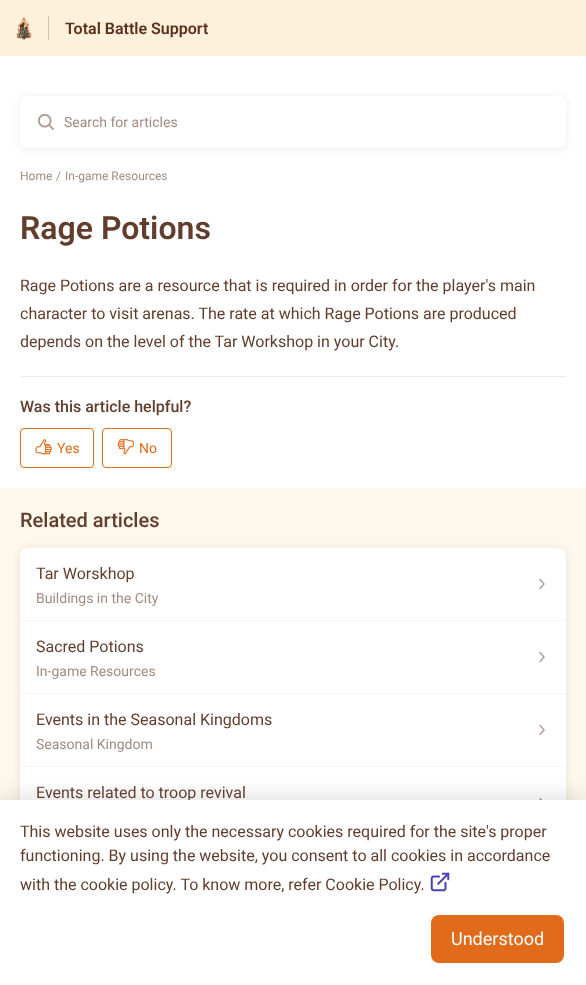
(async () => {
  const canvas = document.querySelector("canvas");
  canvas.width = 586;
  canvas.height = 985;
  const ctx = canvas.getContext("2d");
  ctx.miterLimit = 4;
  ctx.fontKerning = "normal";
  async function loadImage(src) {
    const img = new Image();
    img.src = src;
    await img.decode();
    return img;
  }
  let path;

  ctx.fillStyle = "#fef7eb";
  ctx.fillRect(0, 0, 586, 985);
  ctx.fillStyle = "#fef1dc";
  ctx.fillRect(0, 0, 586, 56);
  ctx.fillStyle = "#d5c1ac";
  ctx.fillRect(48, 16, 1, 24);
  ctx.drawImage(await loadImage("img/1.png"), 16, 17, 16, 23);
  ctx.fillStyle = "#ffffff";
  ctx.fillRect(0, 56, 586, 432);
  ctx.fillStyle = "rgba(0, 0, 0, 0.08)";
  ctx.filter = "blur(4px)";
  ctx.beginPath();
  ctx.roundRect(20, 97, 546, 52, 8);
  ctx.fill();
  ctx.filter = "none";
  ctx.fillStyle = "#ffffff";
  ctx.beginPath();
  ctx.roundRect(20, 96, 546, 52, 8);
  ctx.fill();
  ctx.drawImage(await loadImage("img/2.png"), 37, 113, 17, 17);
  ctx.fillStyle = "#efecea";
  ctx.fillRect(20, 376, 546, 1);
  ctx.beginPath();
  ctx.roundRect(20.5, 428.5, 73, 39, 3.5);
  ctx.strokeStyle = "#e06b1a";
  ctx.stroke();
  ctx.drawImage(await loadImage("img/3.png"), 35, 439, 17, 16);
  ctx.beginPath();
  ctx.roundRect(102.5, 428.5, 69, 39, 3.5);
  ctx.stroke();
  ctx.drawImage(await loadImage("img/4.png"), 117, 439, 17, 16);
  ctx.fillStyle = "rgba(0, 0, 0, 0.08)";
  ctx.filter = "blur(4px)";
  ctx.beginPath();
  ctx.roundRect(20, 549, 546, 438, 8);
  ctx.fill();
  ctx.filter = "none";
  ctx.fillStyle = "#ffffff";
  ctx.beginPath();
  ctx.roundRect(20, 548, 546, 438, 8);
  ctx.fill();
  ctx.fillStyle = "#f7f5f4";
  ctx.fillRect(20, 620, 546, 1);
  path = new Path2D("M540 579.5L544 584L540 588.5");
  ctx.strokeStyle = "#b19e96";
  ctx.lineWidth = 1.5;
  ctx.lineCap = "round";
  ctx.lineJoin = "round";
  ctx.stroke(path);
  ctx.fillRect(20, 693, 546, 1);
  path = new Path2D("M540 652.5L544 657L540 661.5");
  ctx.stroke(path);
  ctx.fillRect(20, 766, 546, 1);
  path = new Path2D("M540 725.5L544 730L540 734.5");
  ctx.stroke(path);
  path = new Path2D("M540 798.5L544 803L540 807.5");
  ctx.stroke(path);
  ctx.fillStyle = "rgba(0, 0, 0, 0.16)";
  ctx.filter = "blur(12px)";
  ctx.beginPath();
  ctx.rect(0, 800, 586, 185);
  ctx.fill();
  ctx.filter = "none";
  ctx.font = "600 16px Roboto";
  ctx.fillStyle = "#5b2f1a";
  ctx.fillText("Total Battle Support", 65, 34);
  ctx.font = "14px Roboto";
  ctx.fillStyle = "#a18b80";
  ctx.fillText("Search for articles", 64, 127);
  ctx.font = "12px Roboto";
  for (const [text, x, y] of [
    ["Home", 20, 180],
    ["/", 56, 180],
    ["In-game Resources", 65, 180],
  ]) {
    ctx.fillText(text, x, y);
  }
  ctx.font = "600 32px Roboto";
  ctx.fillStyle = "#623d2c";
  ctx.fillText("Rage Potions", 20, 239);
  ctx.font = "16px Roboto";
  for (const [text, x, y] of [
    ["Rage Potions are a resource that is required in order for the player's main", 20, 291],
    ["character to visit arenas. The rate at which Rage Potions are produced", 20, 319],
    ["depends on the level of the Tar Workshop in your City.", 20, 347],
  ]) {
    ctx.fillText(text, x, y);
  }
  ctx.font = "500 16px Roboto";
  ctx.fillText("Was this article helpful?", 20, 412);
  ctx.font = "14px Roboto";
  ctx.fillStyle = "#e06b1a";
  ctx.fillText("Yes", 57, 453);
  ctx.fillText("No", 139, 453);
  ctx.font = "500 20px Roboto";
  ctx.fillStyle = "#623d2c";
  ctx.fillText("Related articles", 20, 527);
  ctx.font = "16px Roboto";
  ctx.fillText("Tar Worskhop", 36, 579);
  ctx.font = "14px Roboto";
  ctx.fillStyle = "#a18b80";
  ctx.fillText("Buildings in the City", 36, 603);
  ctx.font = "16px Roboto";
  ctx.fillStyle = "#623d2c";
  ctx.fillText("Sacred Potions", 36, 652);
  ctx.font = "14px Roboto";
  ctx.fillStyle = "#a18b80";
  ctx.fillText("In-game Resources", 36, 676);
  ctx.font = "16px Roboto";
  ctx.fillStyle = "#623d2c";
  ctx.fillText("Events in the Seasonal Kingdoms", 36, 725);
  ctx.font = "14px Roboto";
  ctx.fillStyle = "#a18b80";
  ctx.fillText("Seasonal Kingdom", 36, 749);
  ctx.font = "16px Roboto";
  ctx.fillStyle = "#623d2c";
  ctx.fillText("Events related to troop revival", 36, 798);
  ctx.fillStyle = "#ffffff";
  ctx.fillRect(0, 800, 586, 185);
  ctx.fillStyle = "#623d2c";
  for (const [text, x, y] of [
    ["This website uses only the necessary cookies required for the site's proper", 20, 837],
    ["functioning. By using the website, you consent to all cookies in accordance", 20, 861],
    ["with the cookie policy. To know more, refer Cookie Policy.", 20, 890],
  ]) {
    ctx.fillText(text, x, y);
  }
  ctx.drawImage(await loadImage("img/5.png"), 430, 872, 20, 20);
  ctx.fillStyle = "#e06b1a";
  ctx.beginPath();
  ctx.roundRect(431, 915, 133, 48, 8);
  ctx.fill();
  ctx.font = "18px Roboto";
  ctx.fillStyle = "#ffffff";
  ctx.fillText("Understood", 451, 945);
})();
